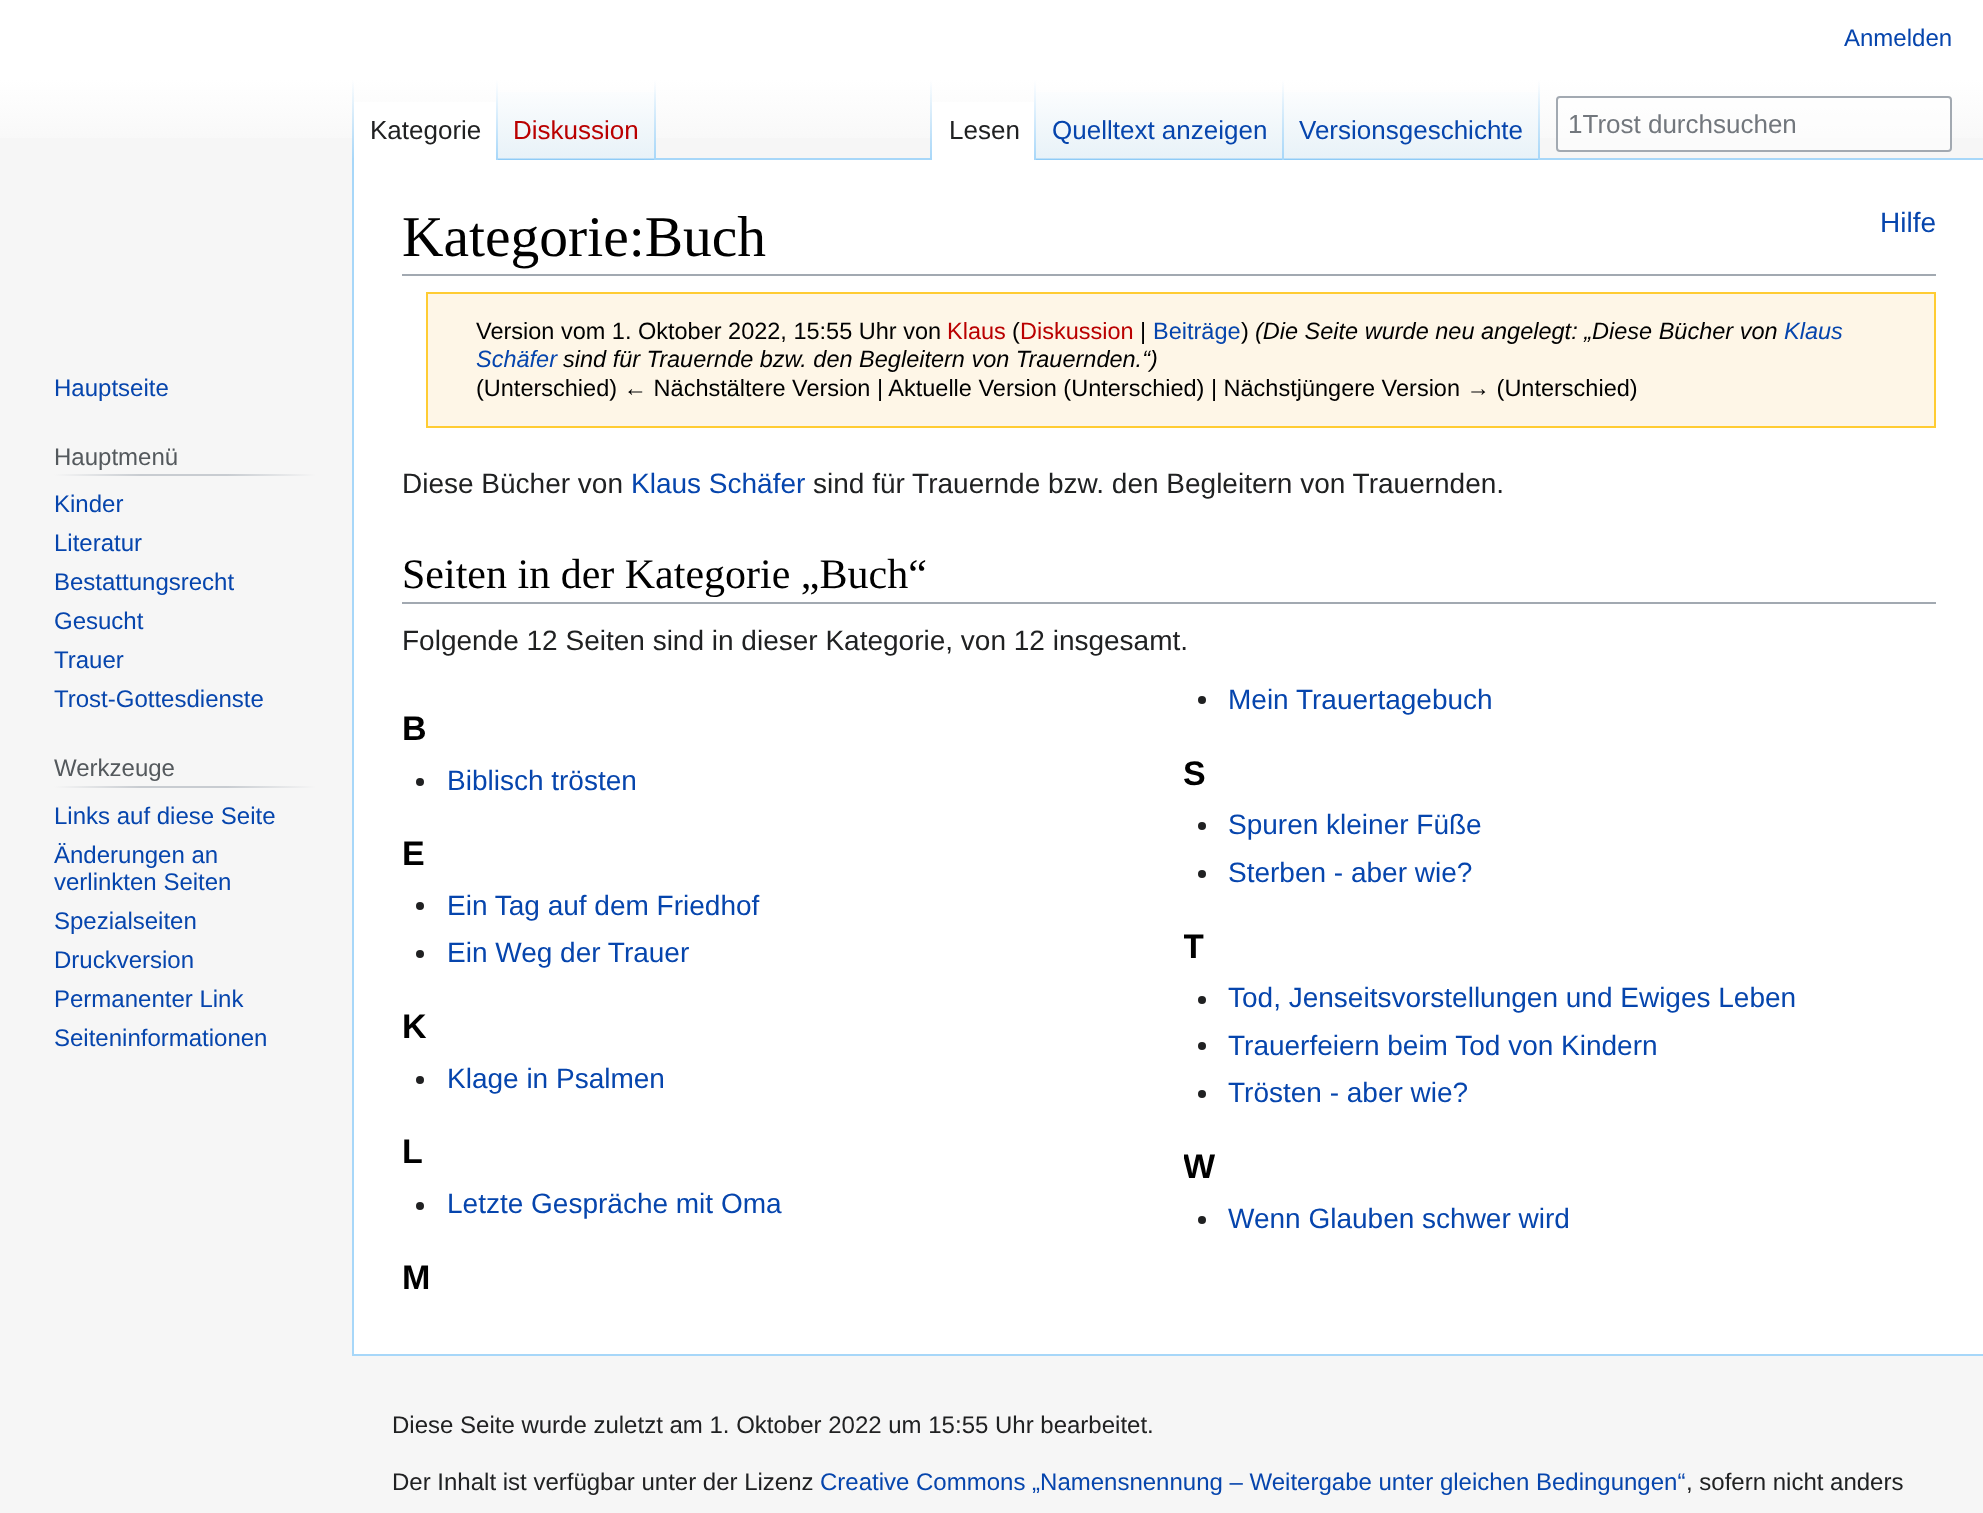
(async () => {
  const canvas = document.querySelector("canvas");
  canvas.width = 1983;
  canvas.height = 1513;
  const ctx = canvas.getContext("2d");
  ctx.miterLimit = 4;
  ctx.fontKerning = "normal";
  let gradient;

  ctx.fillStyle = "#f6f6f6";
  ctx.fillRect(0, 0, 1983, 1513);
  gradient = ctx.createLinearGradient(992, 0, 992, 160);
  gradient.addColorStop(0.5, "#ffffff");
  gradient.addColorStop(1, "#f6f6f6");
  ctx.fillStyle = gradient;
  ctx.fillRect(0, 0, 1983, 138);
  ctx.fillStyle = "#a7d7f9";
  ctx.fillRect(352, 1354, 1631, 2);
  ctx.fillRect(352, 158, 2, 1198);
  gradient = ctx.createLinearGradient(353, 80, 353, 160);
  gradient.addColorStop(0, "rgba(167, 215, 249, 0)");
  gradient.addColorStop(1, "#a7d7f9");
  ctx.fillStyle = gradient;
  ctx.fillRect(352, 80, 2, 80);
  ctx.fillStyle = "#ffffff";
  ctx.fillRect(354, 102, 142, 58);
  gradient = ctx.createLinearGradient(497, 80, 497, 160);
  gradient.addColorStop(0, "#ffffff");
  gradient.addColorStop(1, "#a7d7f9");
  ctx.fillStyle = gradient;
  ctx.fillRect(496, 80, 2, 80);
  gradient = ctx.createLinearGradient(577, 160, 577, 80);
  gradient.addColorStop(0, "#77c1f6");
  gradient.addColorStop(0.03, "#e8f2f8");
  gradient.addColorStop(1, "#ffffff");
  ctx.fillStyle = gradient;
  ctx.fillRect(498, 92, 158, 68);
  gradient = ctx.createLinearGradient(655, 80, 655, 160);
  gradient.addColorStop(0, "rgba(167, 215, 249, 0)");
  gradient.addColorStop(1, "#a7d7f9");
  ctx.fillStyle = gradient;
  ctx.fillRect(654, 80, 2, 80);
  ctx.fillStyle = "#a7d7f9";
  ctx.fillRect(656, 158, 1327, 2);
  gradient = ctx.createLinearGradient(931, 80, 931, 160);
  gradient.addColorStop(0, "rgba(167, 215, 249, 0)");
  gradient.addColorStop(1, "#a7d7f9");
  ctx.fillStyle = gradient;
  ctx.fillRect(930, 80, 2, 80);
  ctx.fillStyle = "#ffffff";
  ctx.fillRect(932, 102, 102, 58);
  gradient = ctx.createLinearGradient(1035, 80, 1035, 160);
  gradient.addColorStop(0, "#ffffff");
  gradient.addColorStop(1, "#a7d7f9");
  ctx.fillStyle = gradient;
  ctx.fillRect(1034, 80, 2, 80);
  gradient = ctx.createLinearGradient(1160, 160, 1160, 80);
  gradient.addColorStop(0, "#77c1f6");
  gradient.addColorStop(0.03, "#e8f2f8");
  gradient.addColorStop(1, "#ffffff");
  ctx.fillStyle = gradient;
  ctx.fillRect(1036, 92, 248, 68);
  gradient = ctx.createLinearGradient(1283, 80, 1283, 160);
  gradient.addColorStop(0, "rgba(167, 215, 249, 0)");
  gradient.addColorStop(1, "#a7d7f9");
  ctx.fillStyle = gradient;
  ctx.fillRect(1282, 80, 2, 80);
  gradient = ctx.createLinearGradient(1412, 160, 1412, 80);
  gradient.addColorStop(0, "#77c1f6");
  gradient.addColorStop(0.03, "#e8f2f8");
  gradient.addColorStop(1, "#ffffff");
  ctx.fillStyle = gradient;
  ctx.fillRect(1284, 92, 256, 68);
  gradient = ctx.createLinearGradient(1539, 80, 1539, 160);
  gradient.addColorStop(0, "rgba(167, 215, 249, 0)");
  gradient.addColorStop(1, "#a7d7f9");
  ctx.fillStyle = gradient;
  ctx.fillRect(1538, 80, 2, 80);
  ctx.fillStyle = "rgba(255, 255, 255, 0.5)";
  ctx.beginPath();
  ctx.roundRect(1557, 97, 394, 54, 3);
  ctx.fill();
  ctx.strokeStyle = "#a2a9b1";
  ctx.lineWidth = 2;
  ctx.stroke();
  gradient = ctx.createLinearGradient(54, 475, 316, 475);
  gradient.addColorStop(0, "#f6f6f6");
  gradient.addColorStop(0.33, "#c8ccd1");
  gradient.addColorStop(0.66, "#c8ccd1");
  gradient.addColorStop(1, "#f6f6f6");
  ctx.fillStyle = gradient;
  ctx.fillRect(54, 474, 262, 2);
  gradient = ctx.createLinearGradient(54, 787, 316, 787);
  gradient.addColorStop(0, "#f6f6f6");
  gradient.addColorStop(0.33, "#c8ccd1");
  gradient.addColorStop(0.66, "#c8ccd1");
  gradient.addColorStop(1, "#f6f6f6");
  ctx.fillStyle = gradient;
  ctx.fillRect(54, 786, 262, 2);
  ctx.fillStyle = "#ffffff";
  ctx.fillRect(354, 160, 1629, 1194);
  ctx.fillStyle = "#a2a9b1";
  ctx.fillRect(402, 274, 1534, 2);
  ctx.fillStyle = "#fef6e7";
  ctx.beginPath();
  ctx.rect(427, 293, 1508, 134);
  ctx.fill();
  ctx.strokeStyle = "#ffcc33";
  ctx.stroke();
  ctx.fillStyle = "#a2a9b1";
  ctx.fillRect(402, 602, 1534, 2);
  ctx.fillStyle = "#202122";
  ctx.beginPath();
  ctx.arc(1202, 700, 4, 0, Math.PI * 2);
  ctx.fill();
  ctx.beginPath();
  ctx.arc(420, 782, 4, 0, Math.PI * 2);
  ctx.fill();
  ctx.beginPath();
  ctx.arc(1202, 826, 4, 0, Math.PI * 2);
  ctx.fill();
  ctx.beginPath();
  ctx.arc(1202, 874, 4, 0, Math.PI * 2);
  ctx.fill();
  ctx.beginPath();
  ctx.arc(420, 906, 4, 0, Math.PI * 2);
  ctx.fill();
  ctx.beginPath();
  ctx.arc(420, 954, 4, 0, Math.PI * 2);
  ctx.fill();
  ctx.beginPath();
  ctx.arc(420, 1080, 4, 0, Math.PI * 2);
  ctx.fill();
  ctx.beginPath();
  ctx.arc(1202, 1000, 4, 0, Math.PI * 2);
  ctx.fill();
  ctx.beginPath();
  ctx.arc(1202, 1046, 4, 0, Math.PI * 2);
  ctx.fill();
  ctx.beginPath();
  ctx.arc(1202, 1094, 4, 0, Math.PI * 2);
  ctx.fill();
  ctx.beginPath();
  ctx.arc(420, 1206, 4, 0, Math.PI * 2);
  ctx.fill();
  ctx.beginPath();
  ctx.arc(1202, 1220, 4, 0, Math.PI * 2);
  ctx.fill();
  ctx.font = "24px Liberation Sans";
  ctx.fillStyle = "#0645ad";
  ctx.fillText("Anmelden", 1844, 46);
  ctx.font = "26px Liberation Sans";
  ctx.fillStyle = "#202122";
  ctx.fillText("Kategorie", 370, 139);
  ctx.fillStyle = "#ba0000";
  ctx.fillText("Diskussion", 513, 139);
  ctx.fillStyle = "#202122";
  ctx.fillText("Lesen", 949, 139);
  ctx.fillStyle = "#0645ad";
  ctx.fillText("Quelltext anzeigen", 1052, 139);
  ctx.fillText("Versionsgeschichte", 1299, 139);
  ctx.fillStyle = "#72777d";
  ctx.fillText("1Trost durchsuchen", 1568, 133);
  ctx.font = "24px Liberation Sans";
  ctx.fillStyle = "#0645ad";
  ctx.fillText("Hauptseite", 54, 396);
  ctx.fillStyle = "#54595d";
  ctx.fillText("Hauptmenü", 54, 465);
  ctx.fillStyle = "#0645ad";
  for (const [text, x, y] of [
    ["Kinder", 54, 512],
    ["Literatur", 54, 551],
    ["Bestattungsrecht", 54, 590],
    ["Gesucht", 54, 629],
    ["Trauer", 54, 668],
    ["Trost-Gottesdienste", 54, 707],
  ]) {
    ctx.fillText(text, x, y);
  }
  ctx.fillStyle = "#54595d";
  ctx.fillText("Werkzeuge", 54, 776);
  ctx.fillStyle = "#0645ad";
  for (const [text, x, y] of [
    ["Links auf diese Seite", 54, 824],
    ["Änderungen an", 54, 863],
    ["verlinkten Seiten", 54, 890],
    ["Spezialseiten", 54, 929],
    ["Druckversion", 54, 968],
    ["Permanenter Link", 54, 1007],
    ["Seiteninformationen", 54, 1046],
  ]) {
    ctx.fillText(text, x, y);
  }
  ctx.font = "57.5px Liberation Serif";
  ctx.fillStyle = "#000000";
  ctx.fillText("Kategorie:Buch", 402, 256);
  ctx.font = "28px Liberation Sans";
  ctx.fillStyle = "#0645ad";
  ctx.fillText("Hilfe", 1880, 232);
  ctx.font = "23.5px Liberation Sans";
  ctx.fillStyle = "#000000";
  ctx.fillText("Version vom 1. Oktober 2022, 15:55 Uhr von", 476, 339);
  ctx.fillStyle = "#ba0000";
  ctx.fillText("Klaus", 947, 339);
  ctx.fillStyle = "#000000";
  ctx.fillText("(", 1012, 339);
  ctx.fillStyle = "#ba0000";
  ctx.fillText("Diskussion", 1020, 339);
  ctx.fillStyle = "#000000";
  ctx.fillText("|", 1140, 339);
  ctx.fillStyle = "#0645ad";
  ctx.fillText("Beiträge", 1153, 339);
  ctx.fillStyle = "#000000";
  ctx.fillText(")", 1241, 339);
  ctx.font = "italic 23.5px Liberation Sans";
  ctx.fillText("(Die Seite wurde neu angelegt: „Diese Bücher von", 1255, 339);
  ctx.fillStyle = "#0645ad";
  ctx.fillText("Klaus", 1784, 339);
  ctx.fillText("Schäfer", 476, 367);
  ctx.fillStyle = "#000000";
  ctx.fillText("sind für Trauernde bzw. den Begleitern von Trauernden.“)", 563, 367);
  ctx.font = "23.5px Liberation Sans";
  ctx.fillText("(Unterschied) ← Nächstältere Version | Aktuelle Version (Unterschied) | Nächstjüngere Version → (Unterschied)", 476, 396);
  ctx.font = "28px Liberation Sans";
  ctx.fillStyle = "#202122";
  ctx.fillText("Diese Bücher von", 402, 493);
  ctx.fillStyle = "#0645ad";
  ctx.fillText("Klaus Schäfer", 631, 493);
  ctx.fillStyle = "#202122";
  ctx.fillText("sind für Trauernde bzw. den Begleitern von Trauernden.", 813, 493);
  ctx.font = "42px Liberation Serif";
  ctx.fillStyle = "#000000";
  ctx.fillText("Seiten in der Kategorie „Buch“", 402, 588);
  ctx.font = "28px Liberation Sans";
  ctx.fillStyle = "#202122";
  ctx.fillText("Folgende 12 Seiten sind in dieser Kategorie, von 12 insgesamt.", 402, 650);
  ctx.fillStyle = "#0645ad";
  ctx.fillText("Mein Trauertagebuch", 1228, 709);
  ctx.font = "bold 34px Liberation Sans";
  ctx.fillStyle = "#000000";
  ctx.fillText("M", 402, 1289);
  ctx.fillText("B", 402, 740);
  ctx.font = "28px Liberation Sans";
  ctx.fillStyle = "#0645ad";
  ctx.fillText("Biblisch trösten", 447, 790);
  ctx.font = "bold 34px Liberation Sans";
  ctx.fillStyle = "#000000";
  ctx.fillText("S", 1183, 785);
  ctx.font = "28px Liberation Sans";
  ctx.fillStyle = "#0645ad";
  ctx.fillText("Spuren kleiner Füße", 1228, 834);
  ctx.fillText("Sterben - aber wie?", 1228, 882);
  ctx.font = "bold 34px Liberation Sans";
  ctx.fillStyle = "#000000";
  ctx.fillText("E", 402, 865);
  ctx.font = "28px Liberation Sans";
  ctx.fillStyle = "#0645ad";
  ctx.fillText("Ein Tag auf dem Friedhof", 447, 915);
  ctx.fillText("Ein Weg der Trauer", 447, 962);
  ctx.font = "bold 34px Liberation Sans";
  ctx.fillStyle = "#000000";
  ctx.fillText("K", 402, 1038);
  ctx.font = "28px Liberation Sans";
  ctx.fillStyle = "#0645ad";
  ctx.fillText("Klage in Psalmen", 447, 1088);
  ctx.save();
  ctx.beginPath();
  ctx.rect(1184, 904, 752, 72);
  ctx.clip();
  ctx.font = "bold 34px Liberation Sans";
  ctx.fillStyle = "#000000";
  ctx.fillText("T", 1183, 958);
  ctx.restore();
  for (const [text, x, y] of [
    ["Tod, Jenseitsvorstellungen und Ewiges Leben", 1228, 1007],
    ["Trauerfeiern beim Tod von Kindern", 1228, 1055],
    ["Trösten - aber wie?", 1228, 1102],
  ]) {
    ctx.fillText(text, x, y);
  }
  ctx.font = "bold 34px Liberation Sans";
  ctx.fillStyle = "#000000";
  ctx.fillText("L", 402, 1163);
  ctx.font = "28px Liberation Sans";
  ctx.fillStyle = "#0645ad";
  ctx.fillText("Letzte Gespräche mit Oma", 447, 1213);
  ctx.save();
  ctx.beginPath();
  ctx.rect(1184, 1126, 752, 70);
  ctx.clip();
  ctx.font = "bold 34px Liberation Sans";
  ctx.fillStyle = "#000000";
  ctx.fillText("W", 1183, 1178);
  ctx.restore();
  ctx.fillText("Wenn Glauben schwer wird", 1228, 1228);
  ctx.font = "24px Liberation Sans";
  ctx.fillStyle = "#202122";
  ctx.fillText("Diese Seite wurde zuletzt am 1. Oktober 2022 um 15:55 Uhr bearbeitet.", 392, 1433);
  ctx.fillText("Der Inhalt ist verfügbar unter der Lizenz", 392, 1490);
  ctx.fillStyle = "#0645ad";
  ctx.fillText("Creative Commons „Namensnennung – Weitergabe unter gleichen Bedingungen“", 820, 1490);
  ctx.fillStyle = "#202122";
  ctx.fillText(", sofern nicht anders", 1686, 1490);
})();
